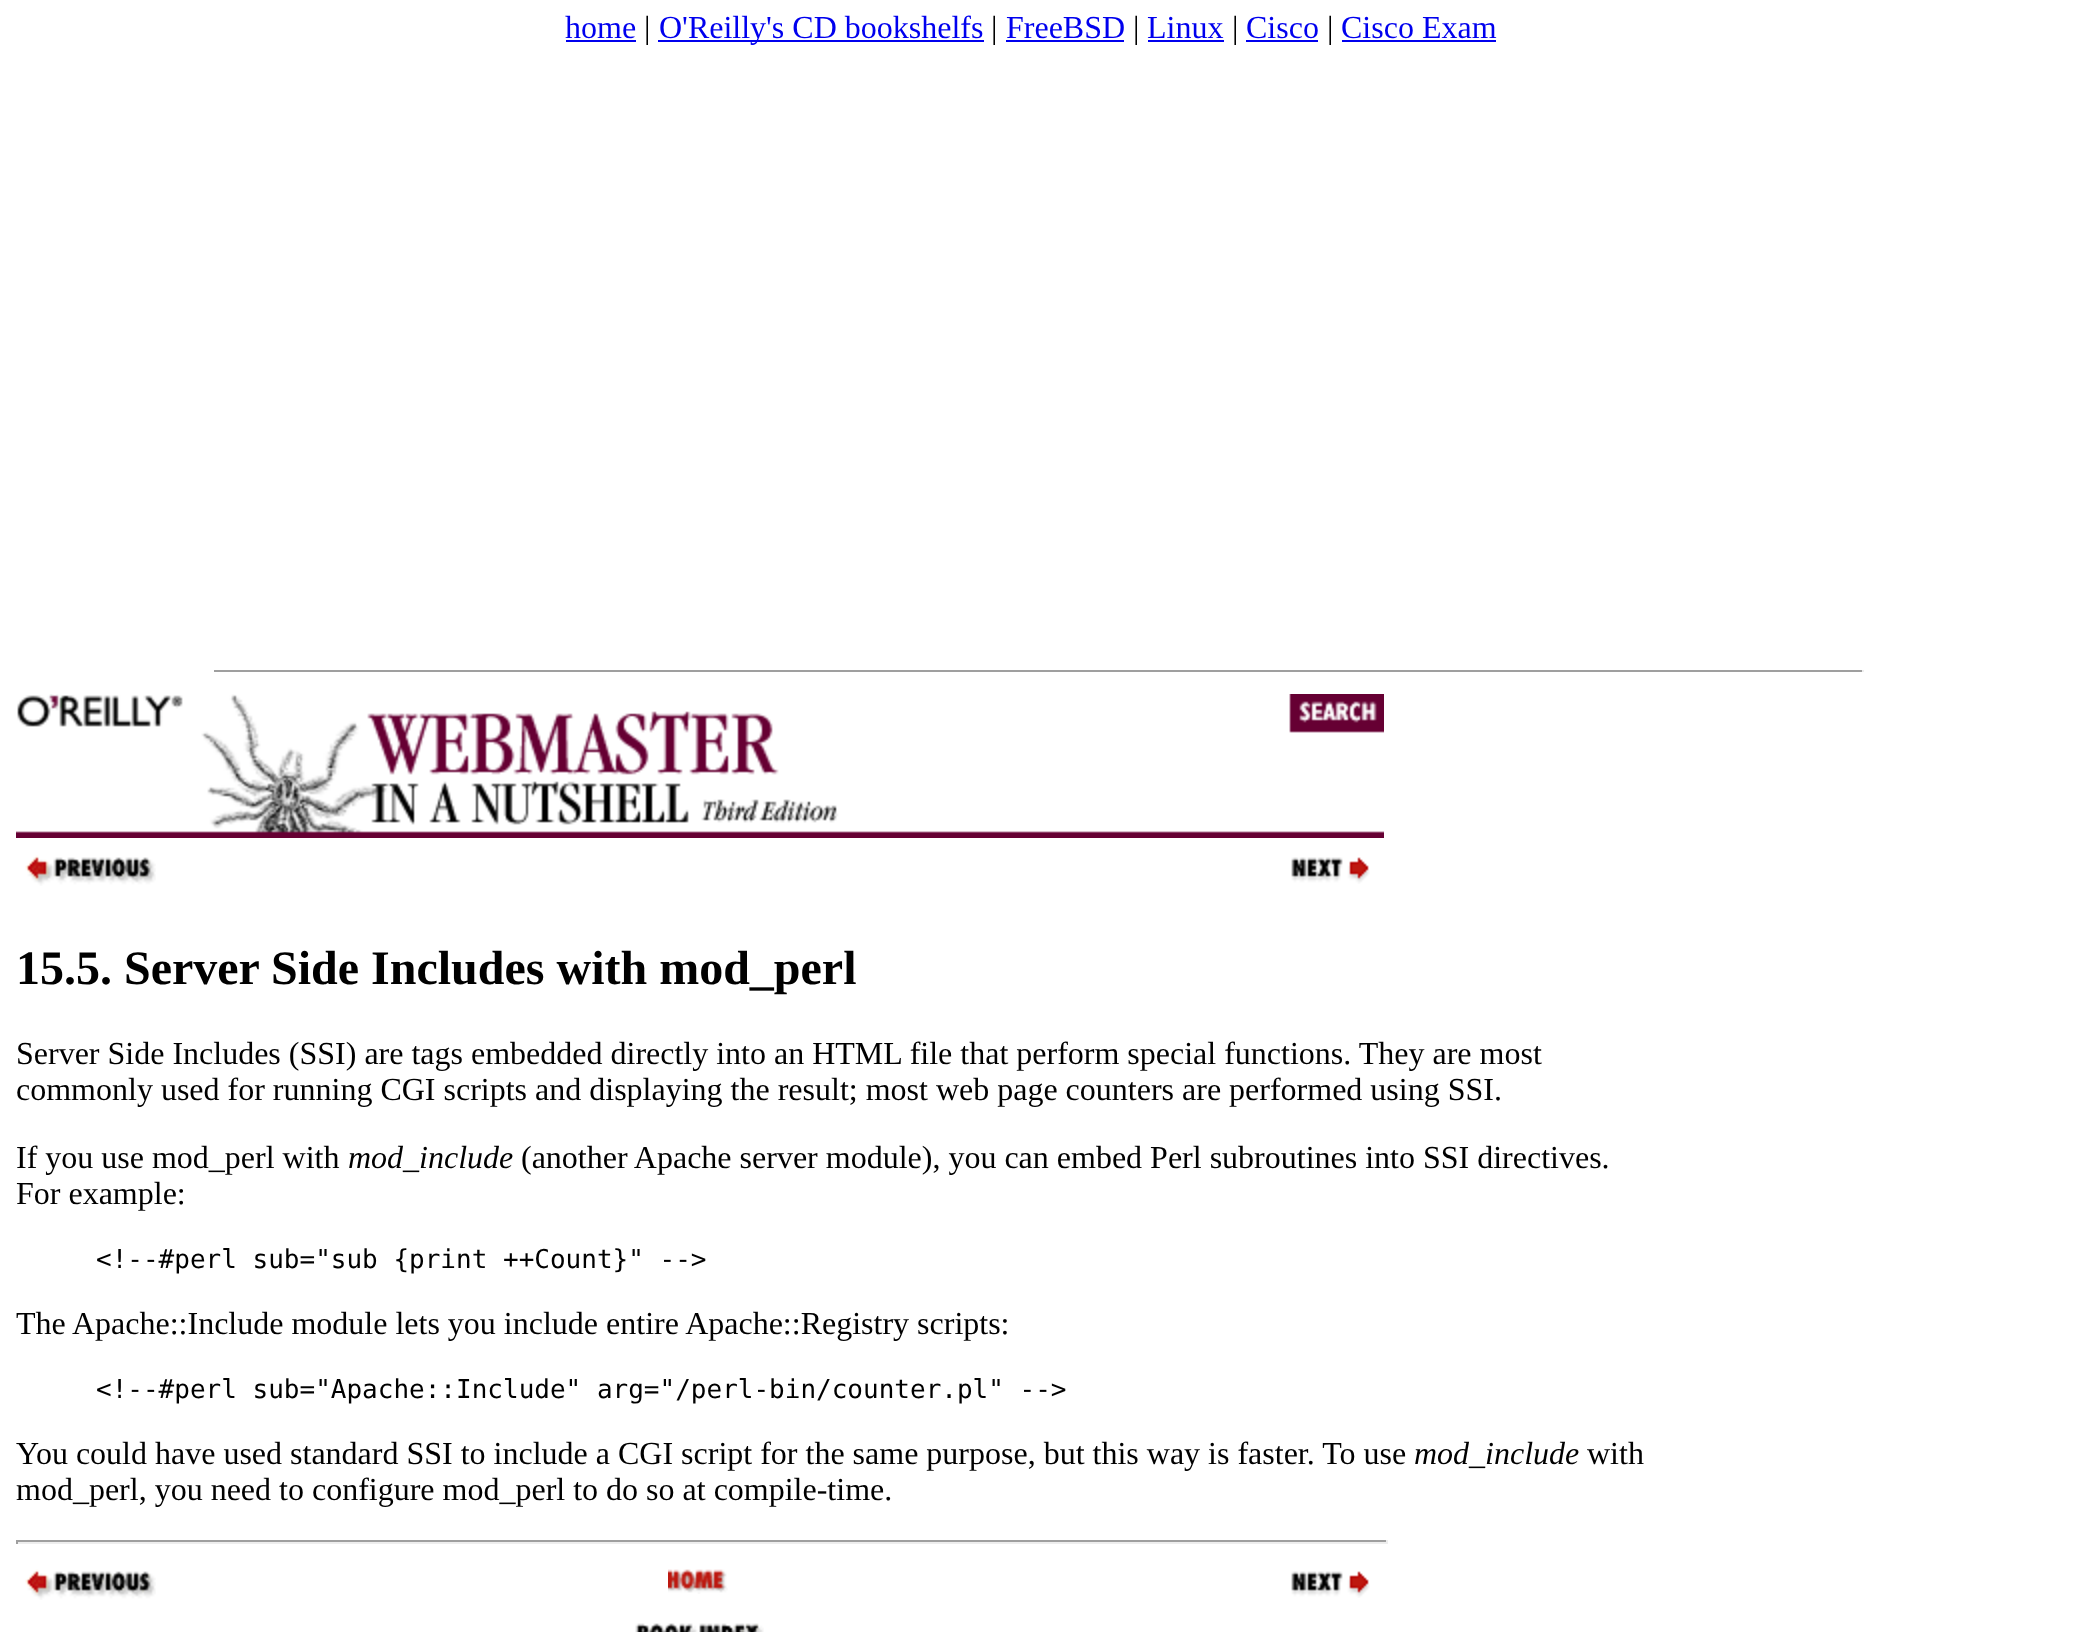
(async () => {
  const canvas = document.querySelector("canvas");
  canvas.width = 2077;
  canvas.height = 1632;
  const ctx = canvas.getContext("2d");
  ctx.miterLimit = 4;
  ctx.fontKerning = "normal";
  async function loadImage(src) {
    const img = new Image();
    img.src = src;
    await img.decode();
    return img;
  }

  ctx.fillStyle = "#ffffff";
  ctx.fillRect(0, 0, 2077, 1632);
  for (const [x, y, w, h, color] of [
    [566, 40, 70, 2, "#0000ee"],
    [658, 40, 326, 2, "#0000ee"],
    [1006, 40, 118, 2, "#0000ee"],
    [1148, 40, 76, 2, "#0000ee"],
    [1246, 40, 72, 2, "#0000ee"],
    [1342, 40, 154, 2, "#0000ee"],
    [214, 670, 1650, 2, "#9f9f9f"],
    [1862, 670, 2, 2, "#eeeeee"],
  ]) {
    ctx.fillStyle = color;
    ctx.fillRect(x, y, w, h);
  }
  ctx.drawImage(await loadImage("img/1.png"), 16, 694, 1368, 144);
  ctx.drawImage(await loadImage("img/2.png"), 25, 855, 131, 31);
  ctx.drawImage(await loadImage("img/3.png"), 1291, 857, 79, 27);
  for (const [x, y, w, h, color] of [
    [16, 1540, 1372, 2, "#9f9f9f"],
    [1386, 1540, 2, 4, "#eeeeee"],
    [16, 1542, 1372, 2, "#eeeeee"],
    [16, 1540, 2, 4, "#9f9f9f"],
  ]) {
    ctx.fillStyle = color;
    ctx.fillRect(x, y, w, h);
  }
  ctx.drawImage(await loadImage("img/2.png"), 25, 1569, 131, 31);
  ctx.drawImage(await loadImage("img/4.png"), 668, 1569, 60, 25);
  ctx.drawImage(await loadImage("img/3.png"), 1291, 1571, 79, 27);
  ctx.drawImage(await loadImage("img/5.png"), 635, 1623, 129, 9);
  ctx.font = "32px Liberation Serif";
  ctx.fillStyle = "#0000ee";
  ctx.fillText("home", 565, 38);
  ctx.fillStyle = "#000000";
  ctx.fillText("|", 644, 38);
  ctx.fillStyle = "#0000ee";
  ctx.fillText("O'Reilly's CD bookshelfs", 659, 38);
  ctx.fillStyle = "#000000";
  ctx.fillText("|", 991, 38);
  ctx.fillStyle = "#0000ee";
  ctx.fillText("FreeBSD", 1006, 38);
  ctx.fillStyle = "#000000";
  ctx.fillText("|", 1133, 38);
  ctx.fillStyle = "#0000ee";
  ctx.fillText("Linux", 1147, 38);
  ctx.fillStyle = "#000000";
  ctx.fillText("|", 1232, 38);
  ctx.fillStyle = "#0000ee";
  ctx.fillText("Cisco", 1246, 38);
  ctx.fillStyle = "#000000";
  ctx.fillText("|", 1327, 38);
  ctx.fillStyle = "#0000ee";
  ctx.fillText("Cisco Exam", 1341, 38);
  ctx.font = "bold 48px Liberation Serif";
  ctx.fillStyle = "#000000";
  ctx.fillText("15.5. Server Side Includes with mod_perl", 16, 984);
  ctx.font = "32px Liberation Serif";
  for (const [text, x, y] of [
    ["Server Side Includes (SSI) are tags embedded directly into an HTML file that perform special functions. They are most", 16, 1064],
    ["commonly used for running CGI scripts and displaying the result; most web page counters are performed using SSI.", 16, 1100],
    ["If you use mod_perl with", 16, 1168],
  ]) {
    ctx.fillText(text, x, y);
  }
  ctx.font = "italic 32px Liberation Serif";
  ctx.fillText("mod_include", 348, 1168);
  ctx.font = "32px Liberation Serif";
  ctx.fillText("(another Apache server module), you can embed Perl subroutines into SSI directives.", 521, 1168);
  ctx.fillText("For example:", 16, 1204);
  ctx.font = "26px DejaVu Sans Mono";
  ctx.fillText("<\!--#perl sub=\"sub {print ++Count}\" -->", 96, 1268);
  ctx.font = "32px Liberation Serif";
  ctx.fillText("The Apache::Include module lets you include entire Apache::Registry scripts:", 16, 1334);
  ctx.font = "26px DejaVu Sans Mono";
  ctx.fillText("<\!--#perl sub=\"Apache::Include\" arg=\"/perl-bin/counter.pl\" -->", 96, 1398);
  ctx.font = "32px Liberation Serif";
  ctx.fillText("You could have used standard SSI to include a CGI script for the same purpose, but this way is faster. To use", 16, 1464);
  ctx.font = "italic 32px Liberation Serif";
  ctx.fillText("mod_include", 1414, 1464);
  ctx.font = "32px Liberation Serif";
  ctx.fillText("with", 1587, 1464);
  ctx.fillText("mod_perl, you need to configure mod_perl to do so at compile-time.", 16, 1500);
})();
